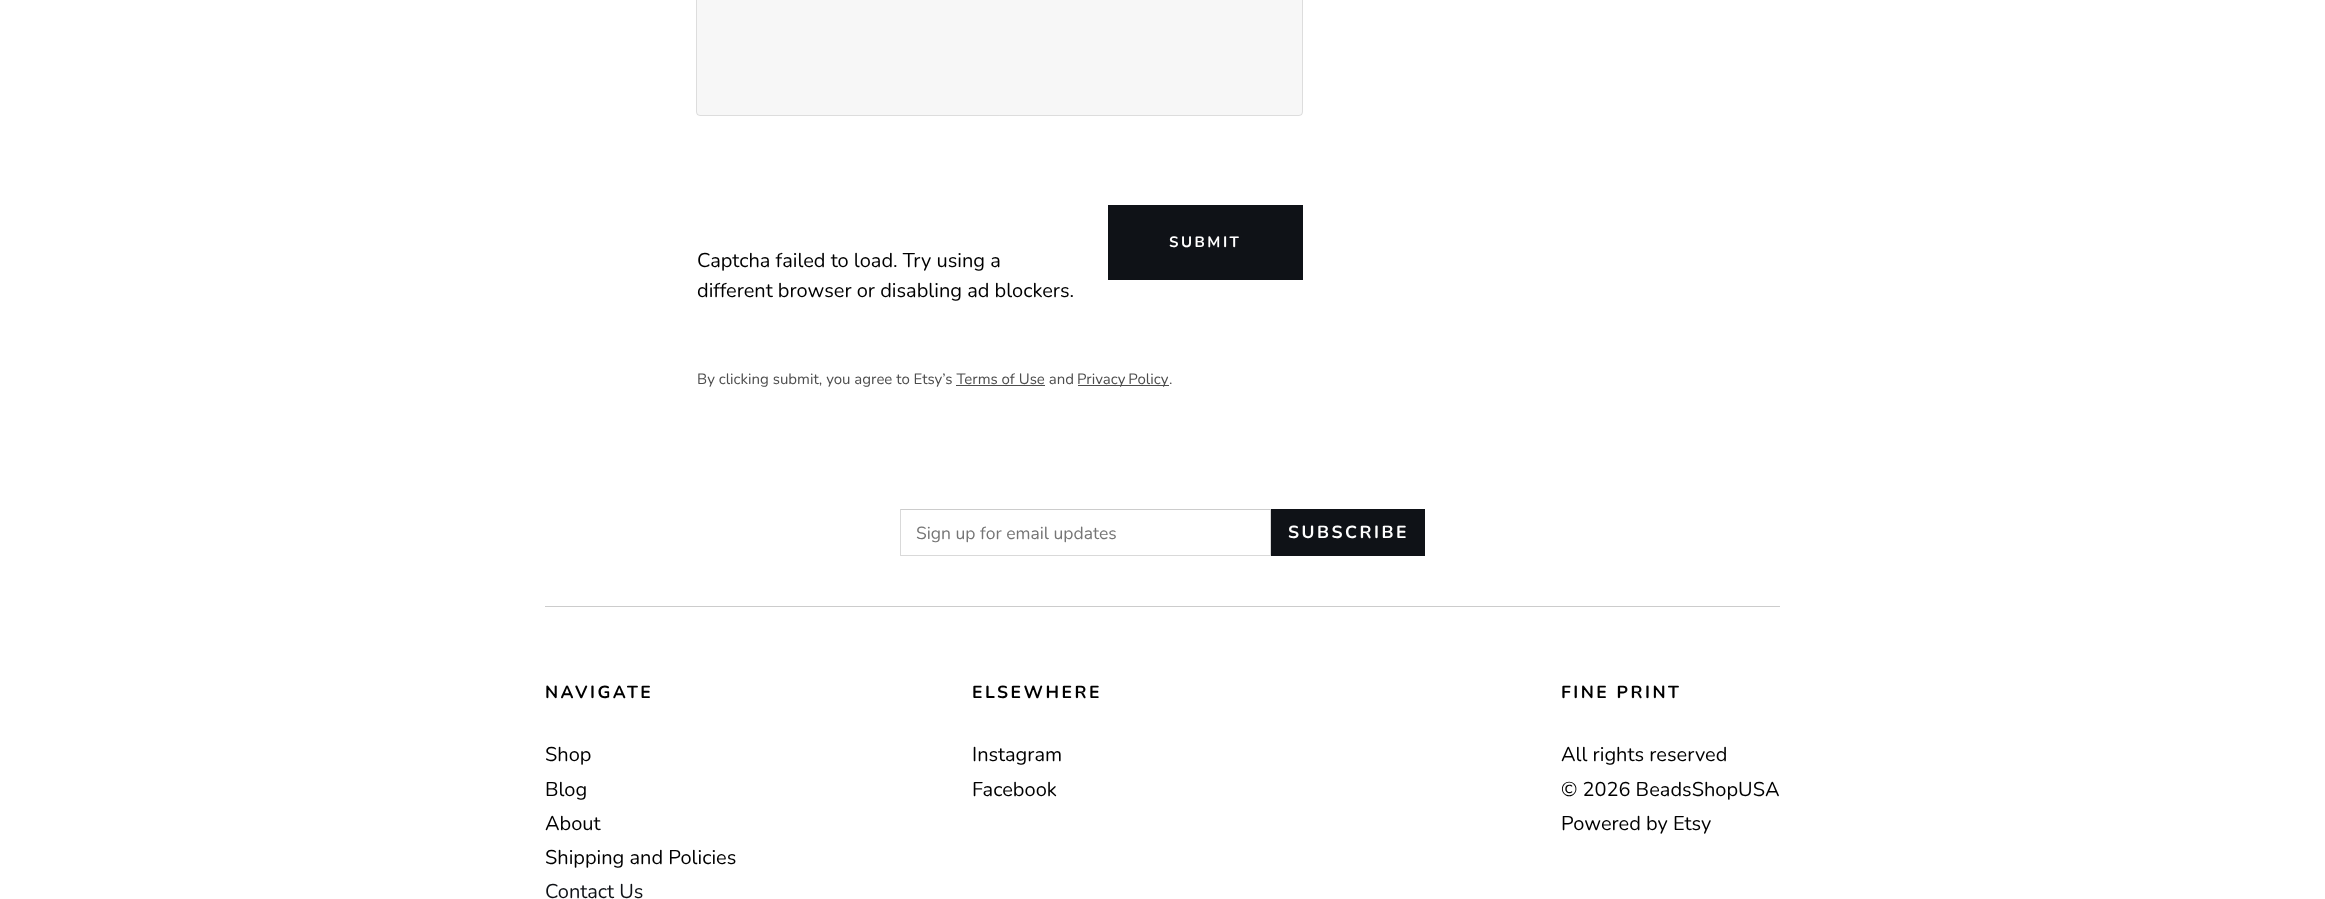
(async () => {
  const canvas = document.querySelector("canvas");
  canvas.width = 2325;
  canvas.height = 899;
  const ctx = canvas.getContext("2d");
  ctx.miterLimit = 4;
  ctx.fontKerning = "normal";
  let path;

  ctx.fillStyle = "#ffffff";
  ctx.fillRect(0, 0, 2325, 899);
  ctx.fillStyle = "#f7f7f7";
  ctx.beginPath();
  ctx.roundRect(696, -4, 607, 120, 4);
  ctx.fill();
  ctx.beginPath();
  ctx.roundRect(696.5, -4.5, 606, 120, 3.5);
  ctx.strokeStyle = "rgba(0, 0, 0, 0.1)";
  ctx.stroke();
  for (const [x, y, w, h, color] of [
    [1108, 205, 195, 75, "#0f1217"],
    [1078, 385, 91, 1, "#4d4d4d"],
    [956, 385, 89, 1, "#4d4d4d"],
  ]) {
    ctx.fillStyle = color;
    ctx.fillRect(x, y, w, h);
  }
  ctx.fillStyle = "#cccccc";
  path = new Path2D("M900 509H1271L1270 510H901Z");
  ctx.fill(path);
  ctx.fillStyle = "rgba(0, 0, 0, 0.15)";
  path = new Path2D("M1271 509V556L1270 555V510Z");
  ctx.fill(path);
  path = new Path2D("M1271 556H900L901 555H1270Z");
  ctx.fill(path);
  path = new Path2D("M900 556V509L901 510V555Z");
  ctx.fill(path);
  ctx.fillStyle = "#0f1217";
  ctx.fillRect(1271, 509, 154, 47);
  ctx.fillStyle = "#cccccc";
  ctx.fillRect(545, 606, 1235, 1);
  ctx.letterSpacing = "2.5px";
  ctx.font = "bold 15px Nunito";
  ctx.fillStyle = "#ffffff";
  ctx.fillText("SUBMIT", 1169, 247);
  ctx.letterSpacing = "0px";
  ctx.font = "20px Nunito";
  ctx.fillStyle = "#000000";
  ctx.fillText("Captcha failed to load. Try using a", 697, 267);
  ctx.fillText("different browser or disabling ad blockers.", 697, 297);
  ctx.font = "15px Nunito";
  ctx.fillStyle = "#4d4d4d";
  ctx.fillText("By clicking submit, you agree to Etsy’s Terms of Use and", 697, 384);
  ctx.wordSpacing = "-1px";
  ctx.fillText("Privacy Policy", 1077, 384);
  ctx.wordSpacing = "0px";
  ctx.fillText(".", 1169, 384);
  ctx.font = "17.5px Nunito";
  ctx.fillStyle = "#757575";
  ctx.fillText("Sign up for email updates", 916, 539);
  ctx.letterSpacing = "2.5px";
  ctx.font = "bold 17.5px Nunito";
  ctx.fillStyle = "#ffffff";
  ctx.fillText("SUBSCRIBE", 1288, 538);
  ctx.fillStyle = "#000000";
  ctx.fillText("NAVIGATE", 545, 698);
  ctx.letterSpacing = "0px";
  ctx.font = "20px Nunito";
  for (const [text, x, y] of [
    ["Shop", 545, 761],
    ["Blog", 545, 796],
    ["About", 545, 830],
    ["Shipping and Policies", 545, 864],
  ]) {
    ctx.fillText(text, x, y);
  }
  ctx.fillStyle = "#0f1217";
  ctx.fillText("Contact Us", 545, 898);
  ctx.letterSpacing = "2.5px";
  ctx.font = "bold 17.5px Nunito";
  ctx.fillStyle = "#000000";
  ctx.fillText("ELSEWHERE", 972, 698);
  ctx.letterSpacing = "0px";
  ctx.font = "20px Nunito";
  ctx.fillText("Instagram", 972, 761);
  ctx.fillText("Facebook", 972, 796);
  ctx.letterSpacing = "2.5px";
  ctx.font = "bold 17.5px Nunito";
  ctx.fillText("FINE PRINT", 1561, 698);
  ctx.letterSpacing = "0px";
  ctx.font = "20px Nunito";
  for (const [text, x, y] of [
    ["All rights reserved", 1561, 761],
    ["© 2026 BeadsShopUSA", 1561, 796],
    ["Powered by Etsy", 1561, 830],
  ]) {
    ctx.fillText(text, x, y);
  }
})();
